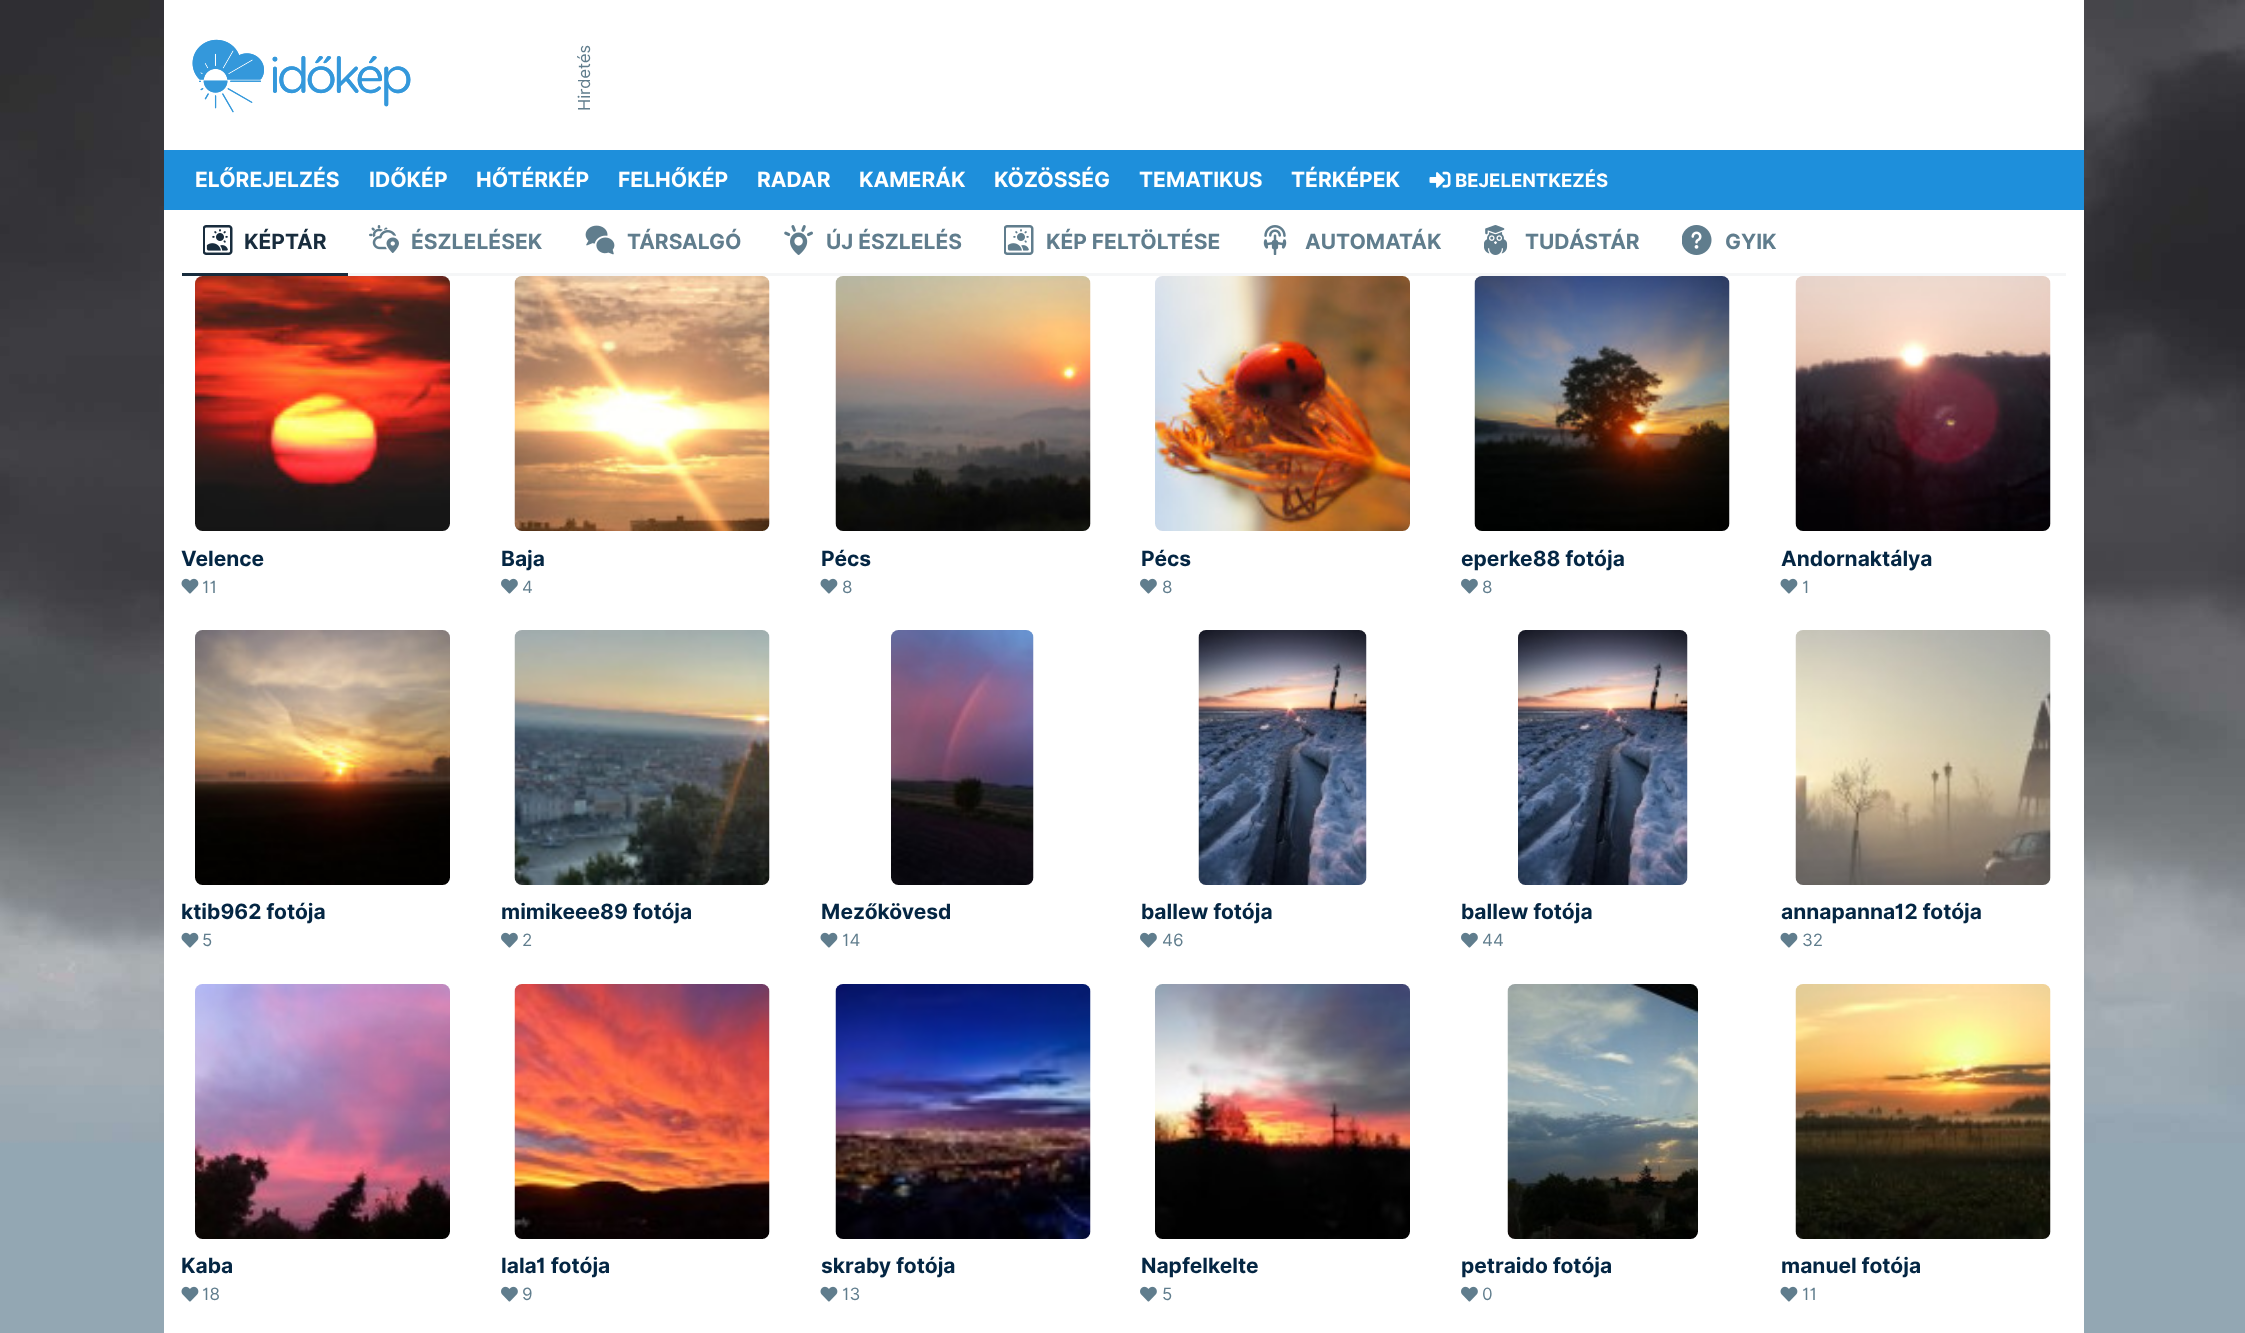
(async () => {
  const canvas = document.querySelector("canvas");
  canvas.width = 2245;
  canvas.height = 1333;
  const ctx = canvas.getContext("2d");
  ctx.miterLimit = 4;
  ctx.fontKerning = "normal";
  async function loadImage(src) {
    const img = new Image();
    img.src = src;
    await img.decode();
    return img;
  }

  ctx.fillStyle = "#93a7b3";
  ctx.fillRect(0, 0, 2245, 1333);
  ctx.drawImage(await loadImage("img/1.png"), 0, 0, 2245, 1143);
  ctx.fillStyle = "#ffffff";
  ctx.fillRect(164, 0, 1920, 150);
  ctx.drawImage(await loadImage("img/2.png"), 192, 39, 219, 74);
  ctx.drawImage(await loadImage("img/3.png"), 192, 39, 219, 74);
  ctx.fillStyle = "#1e8fdb";
  ctx.fillRect(164, 150, 1920, 60);
  ctx.drawImage(await loadImage("img/4.png"), 1429, 171, 22, 17);
  for (const [x, y, w, h, color] of [
    [164, 210, 1920, 1123, "#ffffff"],
    [348, 273, 1718, 3, "#f5f6f7"],
    [182, 273, 166, 3, "#182c3d"],
  ]) {
    ctx.fillStyle = color;
    ctx.fillRect(x, y, w, h);
  }
  ctx.drawImage(await loadImage("img/5.png"), 203, 225, 30, 30);
  ctx.drawImage(await loadImage("img/6.png"), 369, 225, 30, 28);
  ctx.drawImage(await loadImage("img/7.png"), 585, 225, 30, 30);
  ctx.drawImage(await loadImage("img/8.png"), 784, 225, 29, 30);
  ctx.drawImage(await loadImage("img/9.png"), 1004, 225, 30, 30);
  ctx.drawImage(await loadImage("img/10.png"), 1263, 225, 24, 30);
  ctx.drawImage(await loadImage("img/11.png"), 1484, 225, 24, 30);
  ctx.drawImage(await loadImage("img/12.png"), 1682, 225, 30, 30);
  ctx.drawImage(await loadImage("img/13.png"), 195, 276, 255, 255);
  ctx.drawImage(await loadImage("img/14.png"), 181, 578, 18, 16);
  ctx.drawImage(await loadImage("img/15.png"), 514, 276, 256, 255);
  ctx.drawImage(await loadImage("img/16.png"), 501, 578, 17, 16);
  ctx.drawImage(await loadImage("img/17.png"), 835, 276, 256, 255);
  ctx.drawImage(await loadImage("img/14.png"), 820, 578, 18, 16);
  ctx.drawImage(await loadImage("img/18.png"), 1155, 276, 255, 255);
  ctx.drawImage(await loadImage("img/16.png"), 1140, 578, 17, 16);
  ctx.drawImage(await loadImage("img/19.png"), 1474, 276, 256, 255);
  ctx.drawImage(await loadImage("img/16.png"), 1461, 578, 17, 16);
  ctx.drawImage(await loadImage("img/20.png"), 1795, 276, 256, 255);
  ctx.drawImage(await loadImage("img/14.png"), 1780, 578, 18, 16);
  ctx.drawImage(await loadImage("img/21.png"), 195, 630, 255, 255);
  ctx.drawImage(await loadImage("img/14.png"), 181, 932, 18, 16);
  ctx.drawImage(await loadImage("img/22.png"), 514, 630, 256, 255);
  ctx.drawImage(await loadImage("img/16.png"), 501, 932, 17, 16);
  ctx.drawImage(await loadImage("img/23.png"), 891, 630, 143, 255);
  ctx.drawImage(await loadImage("img/14.png"), 820, 932, 18, 16);
  ctx.drawImage(await loadImage("img/24.png"), 1198, 630, 169, 255);
  ctx.drawImage(await loadImage("img/16.png"), 1140, 932, 17, 16);
  ctx.drawImage(await loadImage("img/25.png"), 1518, 630, 170, 255);
  ctx.drawImage(await loadImage("img/16.png"), 1461, 932, 17, 16);
  ctx.drawImage(await loadImage("img/26.png"), 1795, 630, 256, 255);
  ctx.drawImage(await loadImage("img/14.png"), 1780, 932, 18, 16);
  ctx.drawImage(await loadImage("img/27.png"), 195, 984, 255, 255);
  ctx.drawImage(await loadImage("img/14.png"), 181, 1286, 18, 16);
  ctx.drawImage(await loadImage("img/28.png"), 514, 984, 256, 255);
  ctx.drawImage(await loadImage("img/16.png"), 501, 1286, 17, 16);
  ctx.drawImage(await loadImage("img/29.png"), 835, 984, 256, 255);
  ctx.drawImage(await loadImage("img/14.png"), 820, 1286, 18, 16);
  ctx.drawImage(await loadImage("img/30.png"), 1155, 984, 255, 255);
  ctx.drawImage(await loadImage("img/16.png"), 1140, 1286, 17, 16);
  ctx.drawImage(await loadImage("img/31.png"), 1507, 984, 191, 255);
  ctx.drawImage(await loadImage("img/16.png"), 1461, 1286, 17, 16);
  ctx.drawImage(await loadImage("img/32.png"), 1795, 984, 256, 255);
  ctx.drawImage(await loadImage("img/14.png"), 1780, 1286, 18, 16);
  ctx.font = "16.5px Inter";
  ctx.fillStyle = "#607d8d";
  ctx.save();
  ctx.translate(590, 111);
  ctx.rotate(-90 * Math.PI / 180);
  ctx.fillText("Hirdetés", 0, 0);
  ctx.restore();
  ctx.font = "bold 21px Inter";
  ctx.fillStyle = "#ffffff";
  for (const [text, x, y] of [
    ["ELŐREJELZÉS", 195, 187],
    ["IDŐKÉP", 369, 187],
    ["HŐTÉRKÉP", 476, 187],
    ["FELHŐKÉP", 618, 187],
    ["RADAR", 757, 187],
    ["KAMERÁK", 859, 187],
    ["KÖZÖSSÉG", 994, 187],
    ["TEMATIKUS", 1139, 187],
    ["TÉRKÉPEK", 1291, 187],
  ]) {
    ctx.fillText(text, x, y);
  }
  ctx.font = "bold 18.5px Inter";
  ctx.fillText("BEJELENTKEZÉS", 1455, 187);
  ctx.font = "bold 21px Inter";
  ctx.fillStyle = "#182c3d";
  ctx.fillText("KÉPTÁR", 244, 249);
  ctx.fillStyle = "#607d8d";
  for (const [text, x, y] of [
    ["ÉSZLELÉSEK", 411, 249],
    ["TÁRSALGÓ", 627, 249],
    ["ÚJ ÉSZLELÉS", 826, 249],
    ["KÉP FELTÖLTÉSE", 1046, 249],
    ["AUTOMATÁK", 1305, 249],
    ["TUDÁSTÁR", 1525, 249],
    ["GYIK", 1725, 249],
  ]) {
    ctx.fillText(text, x, y);
  }
  ctx.fillStyle = "#042643";
  ctx.fillText("Velence", 181, 566);
  ctx.font = "17px Inter";
  ctx.fillStyle = "#607d8d";
  ctx.fillText("11", 202, 593);
  ctx.font = "bold 21px Inter";
  ctx.fillStyle = "#042643";
  ctx.fillText("Baja", 501, 566);
  ctx.font = "17px Inter";
  ctx.fillStyle = "#607d8d";
  ctx.fillText("4", 522, 593);
  ctx.font = "bold 21px Inter";
  ctx.fillStyle = "#042643";
  ctx.fillText("Pécs", 821, 566);
  ctx.font = "17px Inter";
  ctx.fillStyle = "#607d8d";
  ctx.fillText("8", 842, 593);
  ctx.font = "bold 21px Inter";
  ctx.fillStyle = "#042643";
  ctx.fillText("Pécs", 1141, 566);
  ctx.font = "17px Inter";
  ctx.fillStyle = "#607d8d";
  ctx.fillText("8", 1162, 593);
  ctx.font = "bold 21px Inter";
  ctx.fillStyle = "#042643";
  ctx.fillText("eperke88 fotója", 1461, 566);
  ctx.font = "17px Inter";
  ctx.fillStyle = "#607d8d";
  ctx.fillText("8", 1482, 593);
  ctx.font = "bold 21px Inter";
  ctx.fillStyle = "#042643";
  ctx.fillText("Andornaktálya", 1781, 566);
  ctx.font = "17px Inter";
  ctx.fillStyle = "#607d8d";
  ctx.fillText("1", 1802, 593);
  ctx.font = "bold 21px Inter";
  ctx.fillStyle = "#042643";
  ctx.fillText("ktib962 fotója", 181, 919);
  ctx.font = "17px Inter";
  ctx.fillStyle = "#607d8d";
  ctx.fillText("5", 202, 946);
  ctx.font = "bold 21px Inter";
  ctx.fillStyle = "#042643";
  ctx.fillText("mimikeee89 fotója", 501, 919);
  ctx.font = "17px Inter";
  ctx.fillStyle = "#607d8d";
  ctx.fillText("2", 522, 946);
  ctx.font = "bold 21px Inter";
  ctx.fillStyle = "#042643";
  ctx.fillText("Mezőkövesd", 821, 919);
  ctx.font = "17px Inter";
  ctx.fillStyle = "#607d8d";
  ctx.fillText("14", 842, 946);
  ctx.font = "bold 21px Inter";
  ctx.fillStyle = "#042643";
  ctx.fillText("ballew fotója", 1141, 919);
  ctx.font = "17px Inter";
  ctx.fillStyle = "#607d8d";
  ctx.fillText("46", 1162, 946);
  ctx.font = "bold 21px Inter";
  ctx.fillStyle = "#042643";
  ctx.fillText("ballew fotója", 1461, 919);
  ctx.font = "17px Inter";
  ctx.fillStyle = "#607d8d";
  ctx.fillText("44", 1482, 946);
  ctx.font = "bold 21px Inter";
  ctx.fillStyle = "#042643";
  ctx.fillText("annapanna12 fotója", 1781, 919);
  ctx.font = "17px Inter";
  ctx.fillStyle = "#607d8d";
  ctx.fillText("32", 1802, 946);
  ctx.font = "bold 21px Inter";
  ctx.fillStyle = "#042643";
  ctx.fillText("Kaba", 181, 1273);
  ctx.font = "17px Inter";
  ctx.fillStyle = "#607d8d";
  ctx.fillText("18", 202, 1300);
  ctx.font = "bold 21px Inter";
  ctx.fillStyle = "#042643";
  ctx.fillText("lala1 fotója", 501, 1273);
  ctx.font = "17px Inter";
  ctx.fillStyle = "#607d8d";
  ctx.fillText("9", 522, 1300);
  ctx.font = "bold 21px Inter";
  ctx.fillStyle = "#042643";
  ctx.fillText("skraby fotója", 821, 1273);
  ctx.font = "17px Inter";
  ctx.fillStyle = "#607d8d";
  ctx.fillText("13", 842, 1300);
  ctx.font = "bold 21px Inter";
  ctx.fillStyle = "#042643";
  ctx.fillText("Napfelkelte", 1141, 1273);
  ctx.font = "17px Inter";
  ctx.fillStyle = "#607d8d";
  ctx.fillText("5", 1162, 1300);
  ctx.font = "bold 21px Inter";
  ctx.fillStyle = "#042643";
  ctx.fillText("petraido fotója", 1461, 1273);
  ctx.font = "17px Inter";
  ctx.fillStyle = "#607d8d";
  ctx.fillText("0", 1482, 1300);
  ctx.font = "bold 21px Inter";
  ctx.fillStyle = "#042643";
  ctx.fillText("manuel fotója", 1781, 1273);
  ctx.font = "17px Inter";
  ctx.fillStyle = "#607d8d";
  ctx.fillText("11", 1802, 1300);
})();
